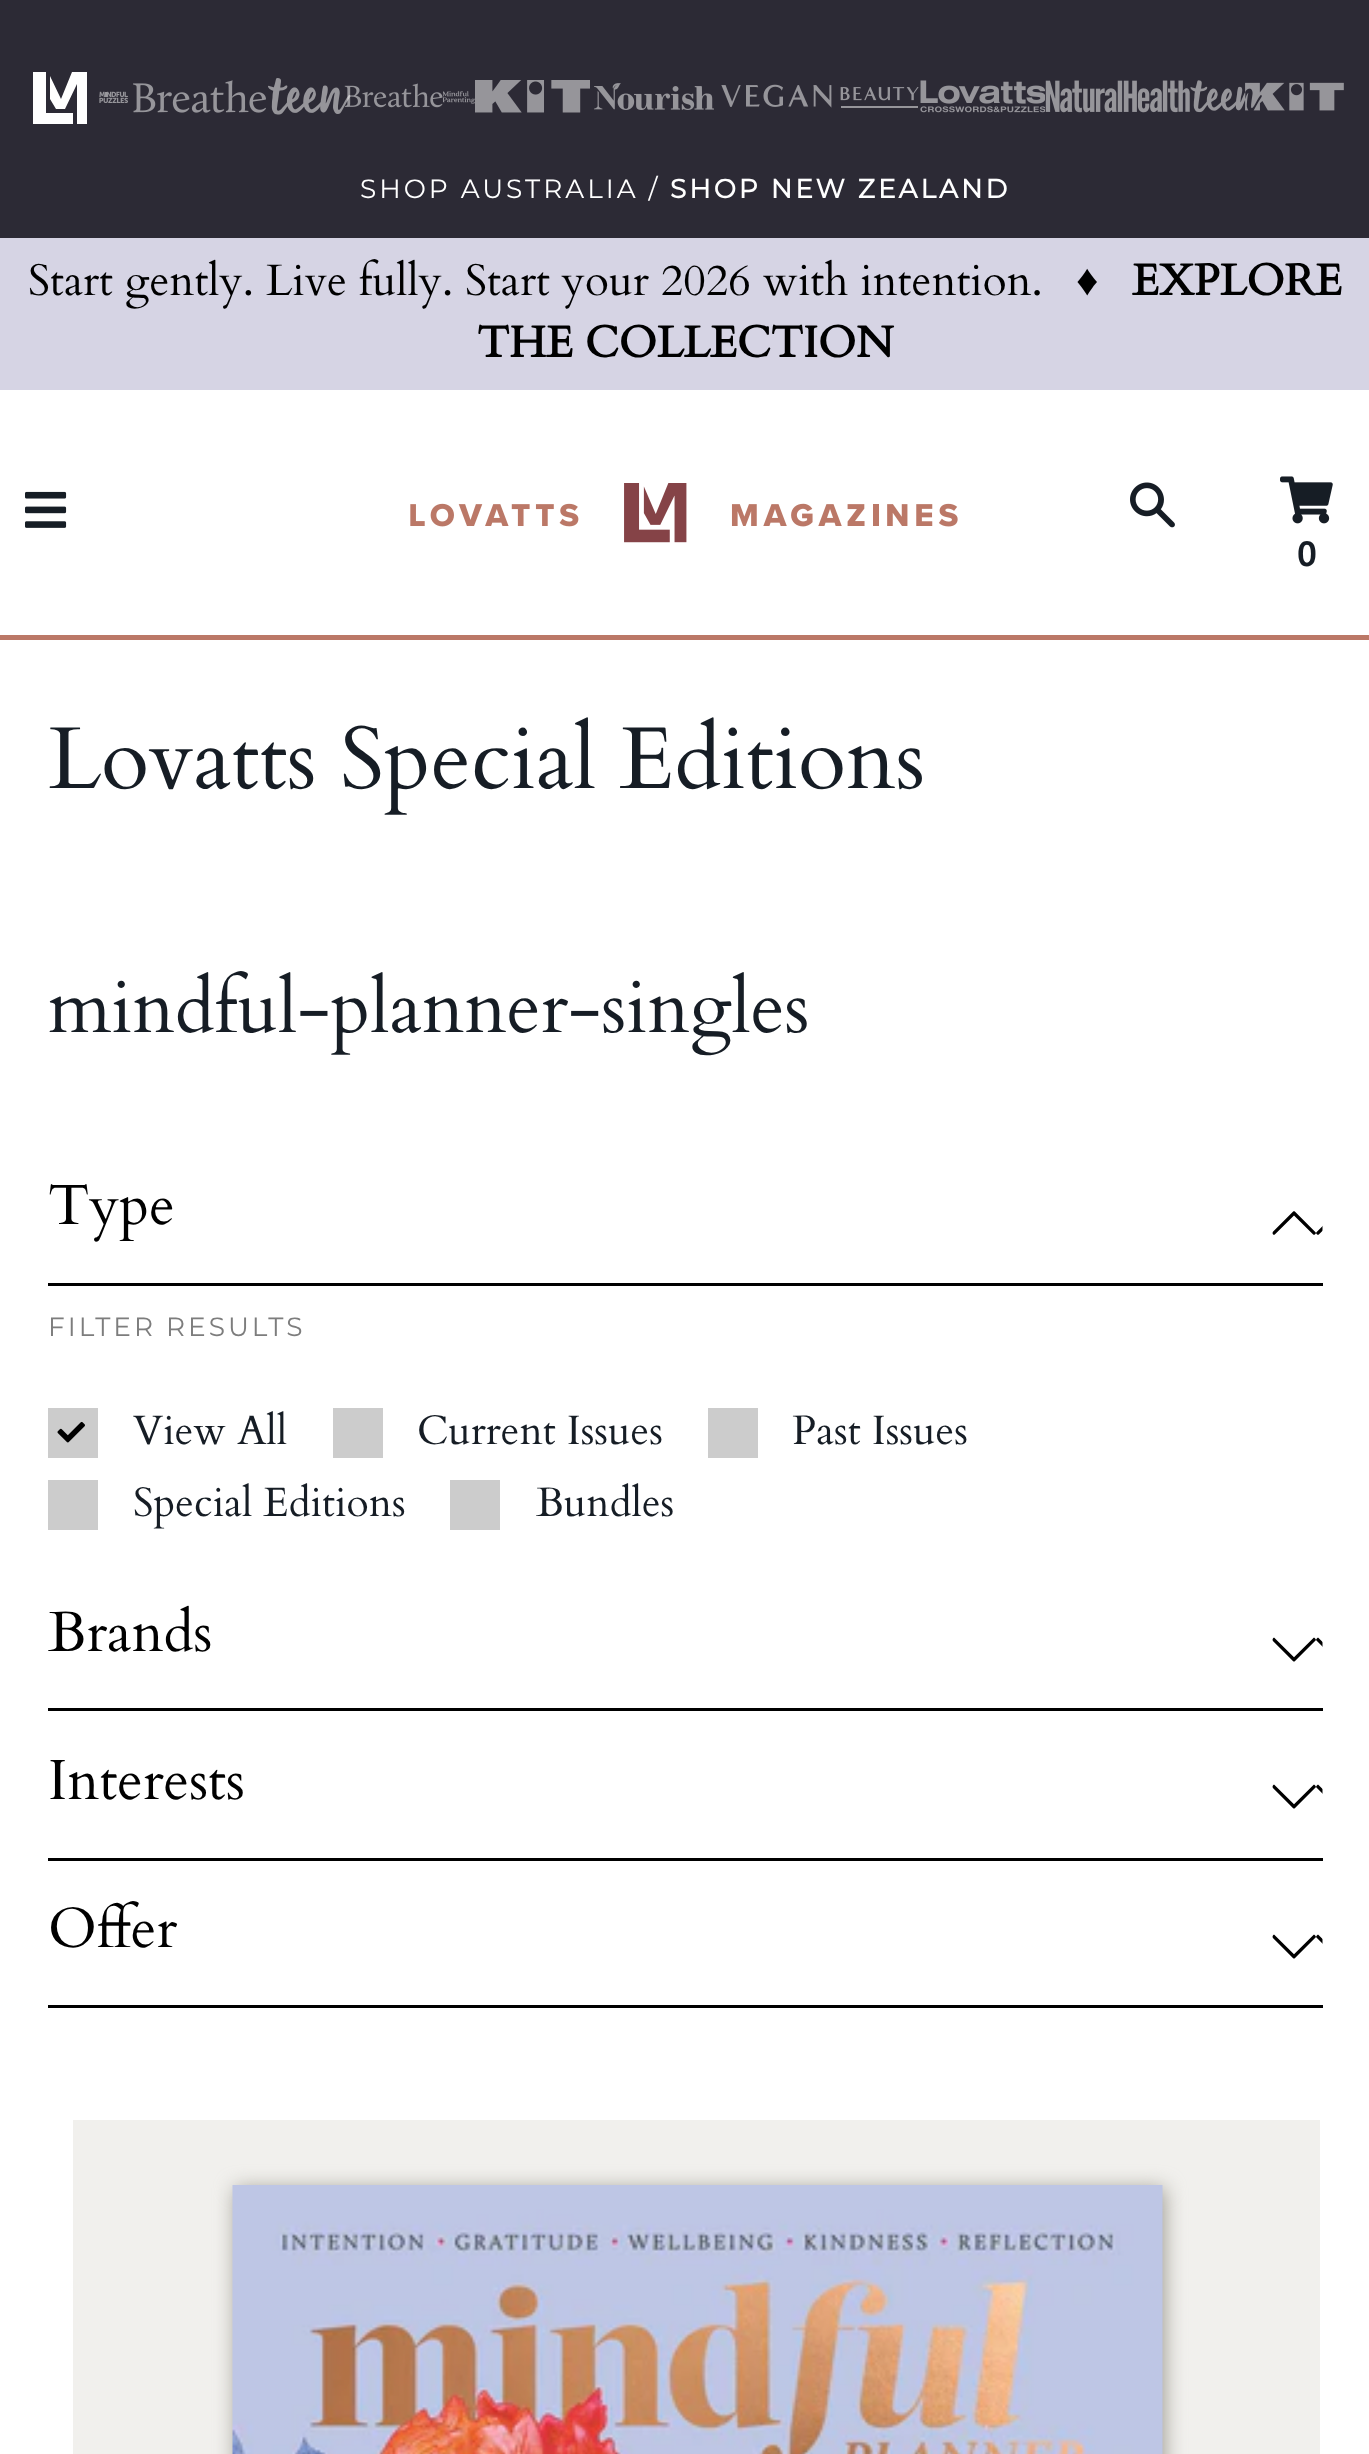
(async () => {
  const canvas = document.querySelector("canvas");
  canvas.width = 1369;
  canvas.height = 2454;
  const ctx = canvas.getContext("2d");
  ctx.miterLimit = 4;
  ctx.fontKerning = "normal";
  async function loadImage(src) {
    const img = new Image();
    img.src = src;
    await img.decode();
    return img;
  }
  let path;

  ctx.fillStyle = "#ffffff";
  ctx.fillRect(0, 0, 1369, 2454);
  ctx.fillStyle = "#2c2a35";
  ctx.fillRect(0, 0, 1369, 238);
  ctx.fillStyle = "#ffffff";
  path = new Path2D("M46 72V113H73V124H33V72Z");
  ctx.fill(path);
  path = new Path2D("M72 72L61 99L50 76V99L56 109H65L77 84V124H87V72Z");
  ctx.fill(path);
  ctx.drawImage(await loadImage("img/1.png"), 99, 91, 29, 12);
  ctx.drawImage(await loadImage("img/2.png"), 133, 80, 133, 33);
  ctx.drawImage(await loadImage("img/3.png"), 268, 78, 175, 37);
  ctx.drawImage(await loadImage("img/4.png"), 443, 91, 32, 13);
  ctx.drawImage(await loadImage("img/5.png"), 475, 80, 115, 33);
  ctx.drawImage(await loadImage("img/6.png"), 594, 83, 120, 27);
  ctx.drawImage(await loadImage("img/7.png"), 721, 84, 198, 24);
  ctx.drawImage(await loadImage("img/8.png"), 920, 80, 125, 33);
  ctx.drawImage(await loadImage("img/9.png"), 1045, 80, 145, 33);
  ctx.drawImage(await loadImage("img/10.png"), 1190, 80, 154, 33);
  ctx.fillStyle = "#d6d4e4";
  ctx.fillRect(0, 238, 1369, 152);
  ctx.fillStyle = "#bb7867";
  ctx.fillRect(0, 635, 1369, 5);
  ctx.drawImage(await loadImage("img/11.png"), 25, 491, 42, 37);
  ctx.drawImage(await loadImage("img/12.png"), 410, 483, 548, 60);
  ctx.drawImage(await loadImage("img/13.png"), 1130, 482, 45, 46);
  ctx.drawImage(await loadImage("img/14.png"), 1280, 476, 53, 48);
  ctx.fillStyle = "#000000";
  ctx.fillRect(48, 1283, 1275, 3);
  ctx.drawImage(await loadImage("img/15.png"), 1272, 1211, 51, 24);
  ctx.fillStyle = "#cccccc";
  ctx.fillRect(48, 1408, 50, 50);
  ctx.drawImage(await loadImage("img/16.png"), 57, 1421, 28, 22);
  for (const [x, y, w, h, color] of [
    [333, 1408, 50, 50, "#cccccc"],
    [708, 1408, 50, 50, "#cccccc"],
    [48, 1480, 50, 50, "#cccccc"],
    [450, 1480, 50, 50, "#cccccc"],
    [48, 1708, 1275, 3, "#000000"],
  ]) {
    ctx.fillStyle = color;
    ctx.fillRect(x, y, w, h);
  }
  ctx.drawImage(await loadImage("img/17.png"), 1272, 1637, 51, 25);
  ctx.fillRect(48, 1858, 1275, 3);
  ctx.drawImage(await loadImage("img/17.png"), 1272, 1784, 51, 25);
  ctx.fillRect(48, 2005, 1275, 3);
  ctx.drawImage(await loadImage("img/17.png"), 1272, 1934, 51, 25);
  ctx.fillStyle = "#f1f0ed";
  ctx.fillRect(73, 2120, 1247, 334);
  ctx.fillStyle = "#a29f96";
  ctx.filter = "blur(10px)";
  ctx.beginPath();
  ctx.rect(235, 2188, 930, 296);
  ctx.fill();
  ctx.filter = "none";
  ctx.drawImage(await loadImage("img/18.png"), 232, 2185, 931, 269);
  ctx.letterSpacing = "3px";
  ctx.font = "100 26.4px Montserrat";
  ctx.fillStyle = "#ffffff";
  ctx.fillText("SHOP AUSTRALIA /", 360, 198);
  ctx.font = "bold 26.4px Montserrat";
  ctx.fillText("SHOP NEW ZEALAND", 670, 198);
  ctx.letterSpacing = "0px";
  ctx.font = "44px Cardo";
  ctx.fillStyle = "#000000";
  ctx.fillText("Start gently. Live fully. Start your 2026 with intention.", 28, 295);
  ctx.font = "44px Liberation Serif";
  ctx.fillText("♦", 1076, 295);
  ctx.font = "bold 44px Cardo";
  ctx.fillText("EXPLORE", 1132, 295);
  ctx.fillText("THE COLLECTION", 477, 357);
  ctx.letterSpacing = "2px";
  ctx.font = "bold 35px PT Sans";
  ctx.fillStyle = "#161d25";
  ctx.fillText("0", 1297, 566);
  ctx.letterSpacing = "0px";
  ctx.font = "88px Cardo";
  ctx.fillText("Lovatts Special Editions", 48, 788);
  ctx.font = "74.75px Cardo";
  ctx.fillText("mindful-planner-singles", 48, 1032);
  ctx.font = "56.5px Cardo";
  ctx.fillStyle = "#000000";
  ctx.fillText("Type", 48, 1224);
  ctx.letterSpacing = "3px";
  ctx.font = "100 26.4px Montserrat";
  ctx.fillStyle = "#7d7d7d";
  ctx.fillText("FILTER RESULTS", 48, 1336);
  ctx.letterSpacing = "0px";
  ctx.font = "41px Cardo";
  ctx.fillStyle = "#161d25";
  for (const [text, x, y] of [
    ["View All", 133, 1444],
    ["Current Issues", 417, 1444],
    ["Past Issues", 792, 1444],
    ["Special Editions", 133, 1516],
    ["Bundles", 536, 1516],
  ]) {
    ctx.fillText(text, x, y);
  }
  ctx.font = "56.5px Cardo";
  ctx.fillStyle = "#000000";
  for (const [text, x, y] of [
    ["Brands", 48, 1651],
    ["Interests", 48, 1799],
    ["Offer", 48, 1947],
  ]) {
    ctx.fillText(text, x, y);
  }
})();
